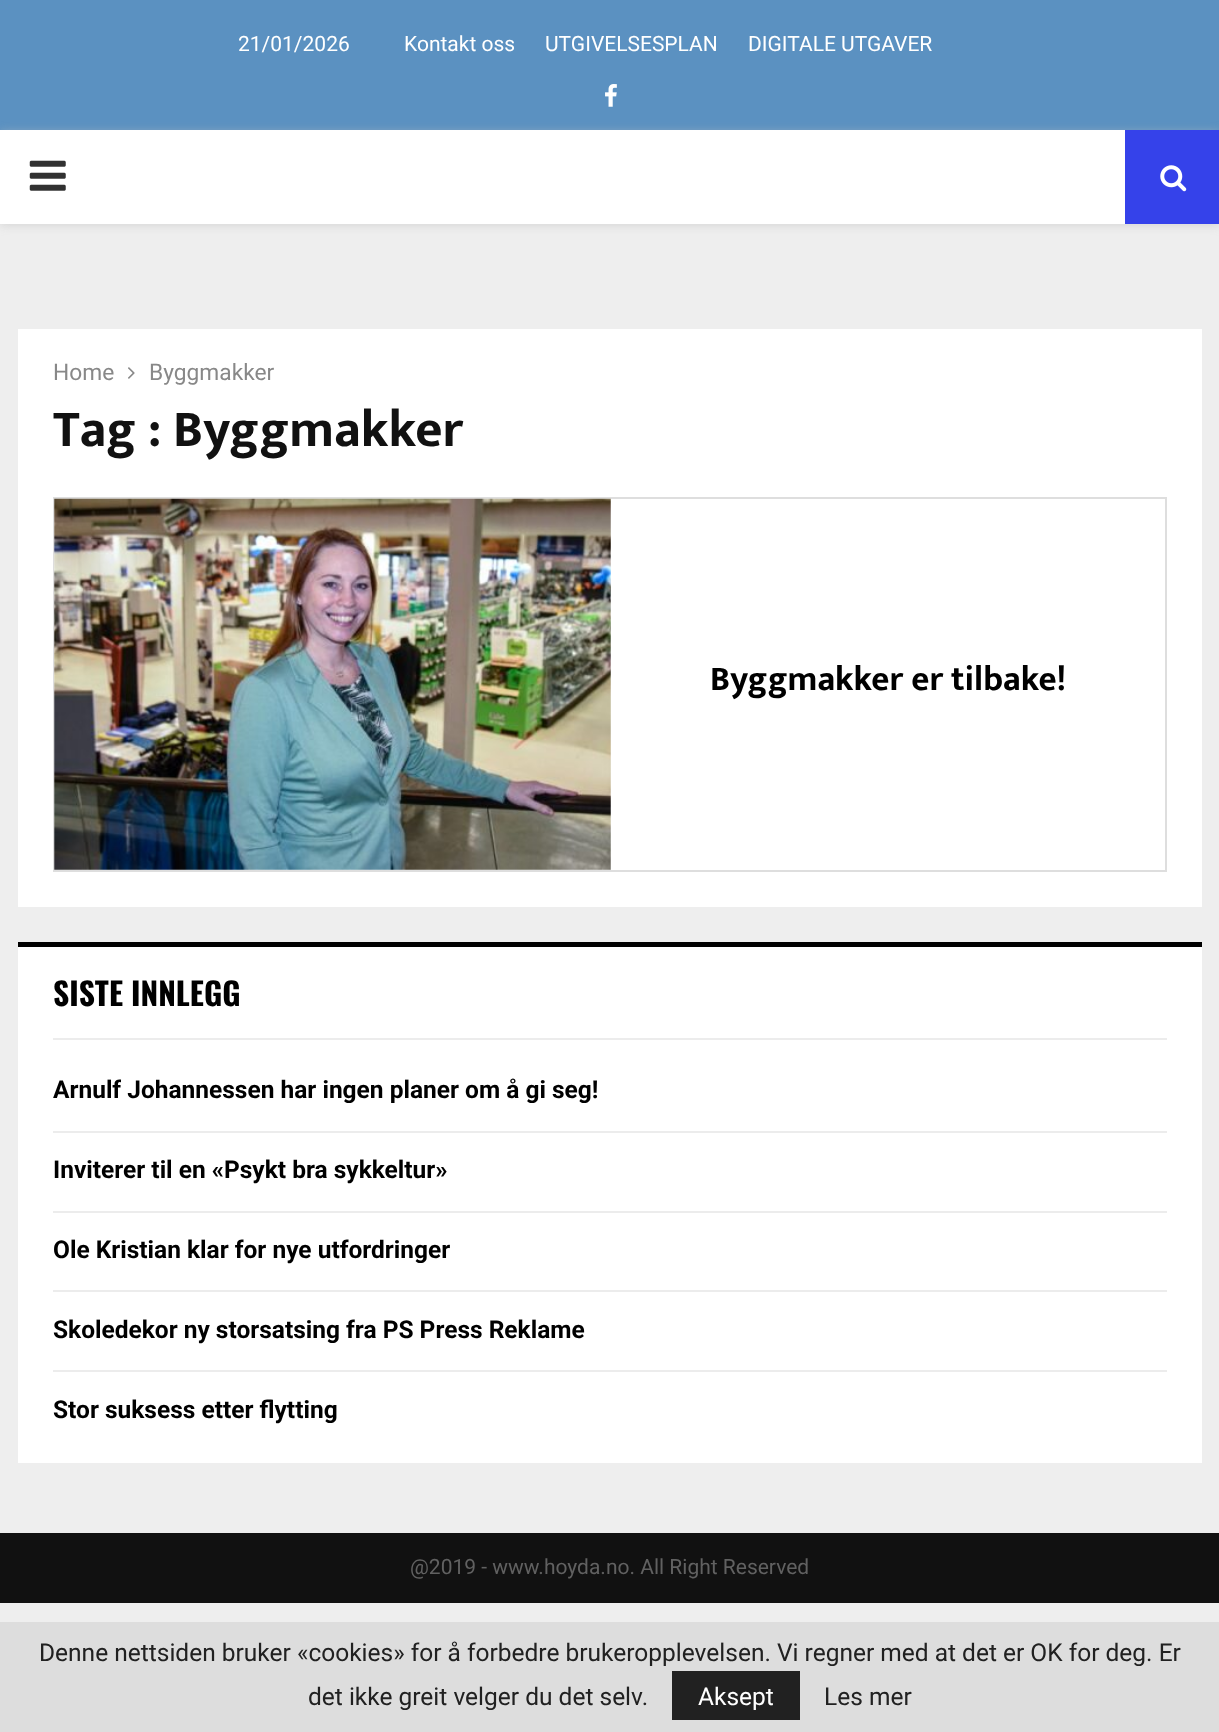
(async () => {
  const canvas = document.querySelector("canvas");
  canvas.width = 1219;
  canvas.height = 1732;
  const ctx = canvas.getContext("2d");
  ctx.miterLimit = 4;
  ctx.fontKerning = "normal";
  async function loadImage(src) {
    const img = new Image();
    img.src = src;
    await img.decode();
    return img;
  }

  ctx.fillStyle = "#eeeeee";
  ctx.fillRect(0, 0, 1219, 1732);
  ctx.fillStyle = "#5b91c1";
  ctx.fillRect(0, 0, 1219, 130);
  ctx.drawImage(await loadImage("img/1.png"), 605, 84, 12, 23);
  ctx.fillStyle = "rgba(190, 190, 190, 0.46)";
  ctx.filter = "blur(4.5px)";
  ctx.beginPath();
  ctx.rect(0, 131, 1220, 95);
  ctx.fill();
  ctx.filter = "none";
  ctx.fillStyle = "#ffffff";
  ctx.fillRect(0, 130, 1125, 94);
  ctx.drawImage(await loadImage("img/2.png"), 29, 160, 37, 31);
  ctx.fillStyle = "#3542ea";
  ctx.fillRect(1125, 130, 94, 94);
  ctx.drawImage(await loadImage("img/3.png"), 1160, 165, 27, 27);
  ctx.fillStyle = "#ffffff";
  ctx.fillRect(18, 329, 1184, 578);
  ctx.drawImage(await loadImage("img/4.png"), 128, 367, 7, 12);
  ctx.strokeStyle = "#dedede";
  ctx.lineWidth = 2;
  ctx.strokeRect(54, 498, 1112, 373);
  ctx.fillStyle = "#f5f5f5";
  ctx.fillRect(54, 499, 557, 371);
  ctx.drawImage(await loadImage("img/5.png"), 54, 498, 557, 372);
  for (const [x, y, w, h, color] of [
    [18, 947, 1184, 516, "#ffffff"],
    [53, 1038, 1114, 2, "#ececec"],
    [18, 942, 1184, 5, "#000000"],
    [53, 1131, 1114, 2, "#ececec"],
    [53, 1211, 1114, 2, "#ececec"],
    [53, 1290, 1114, 2, "#ececec"],
    [53, 1370, 1114, 2, "#ececec"],
    [0, 1533, 1219, 70, "#111111"],
    [0, 1622, 1219, 110, "#dddddd"],
    [672, 1671, 128, 49, "#212121"],
  ]) {
    ctx.fillStyle = color;
    ctx.fillRect(x, y, w, h);
  }
  ctx.font = "21px Roboto";
  ctx.fillStyle = "#ffffff";
  for (const [text, x, y] of [
    ["21/01/2026", 238, 51],
    ["Kontakt oss", 404, 51],
    ["UTGIVELSESPLAN", 545, 51],
    ["DIGITALE UTGAVER", 748, 51],
  ]) {
    ctx.fillText(text, x, y);
  }
  ctx.font = "22.75px Roboto";
  ctx.fillStyle = "#888888";
  ctx.fillText("Home", 53, 380);
  ctx.fillText("Byggmakker", 149, 380);
  ctx.font = "bold 52.5px Mukta Vaani";
  ctx.fillStyle = "#111111";
  ctx.fillText("Tag : Byggmakker", 53, 446);
  ctx.font = "bold 35px Mukta Vaani";
  ctx.fillStyle = "#000000";
  ctx.fillText("Byggmakker er tilbake!", 710, 690);
  ctx.font = "bold 31.5px Oswald";
  ctx.fillText("SISTE INNLEGG", 53, 1006);
  ctx.font = "bold 24.5px Roboto";
  for (const [text, x, y] of [
    ["Arnulf Johannessen har ingen planer om å gi seg!", 53, 1098],
    ["Inviterer til en «Psykt bra sykkeltur»", 53, 1178],
    ["Ole Kristian klar for nye utfordringer", 53, 1258],
    ["Skoledekor ny storsatsing fra PS Press Reklame", 53, 1338],
    ["Stor suksess etter flytting", 53, 1418],
  ]) {
    ctx.fillText(text, x, y);
  }
  ctx.font = "21px Roboto";
  ctx.fillStyle = "#616161";
  ctx.fillText("@2019 - www.hoyda.no. All Right Reserved", 410, 1574);
  ctx.font = "24.5px Roboto";
  ctx.fillStyle = "#212121";
  ctx.fillText("Denne nettsiden bruker «cookies» for å forbedre brukeropplevelsen. Vi regner med at det er OK for deg. Er", 39, 1661);
  ctx.fillText("det ikke greit velger du det selv.", 308, 1705);
  ctx.fillStyle = "#ffffff";
  ctx.fillText("Aksept", 698, 1705);
  ctx.fillStyle = "#212121";
  ctx.fillText("Les mer", 824, 1705);
})();
